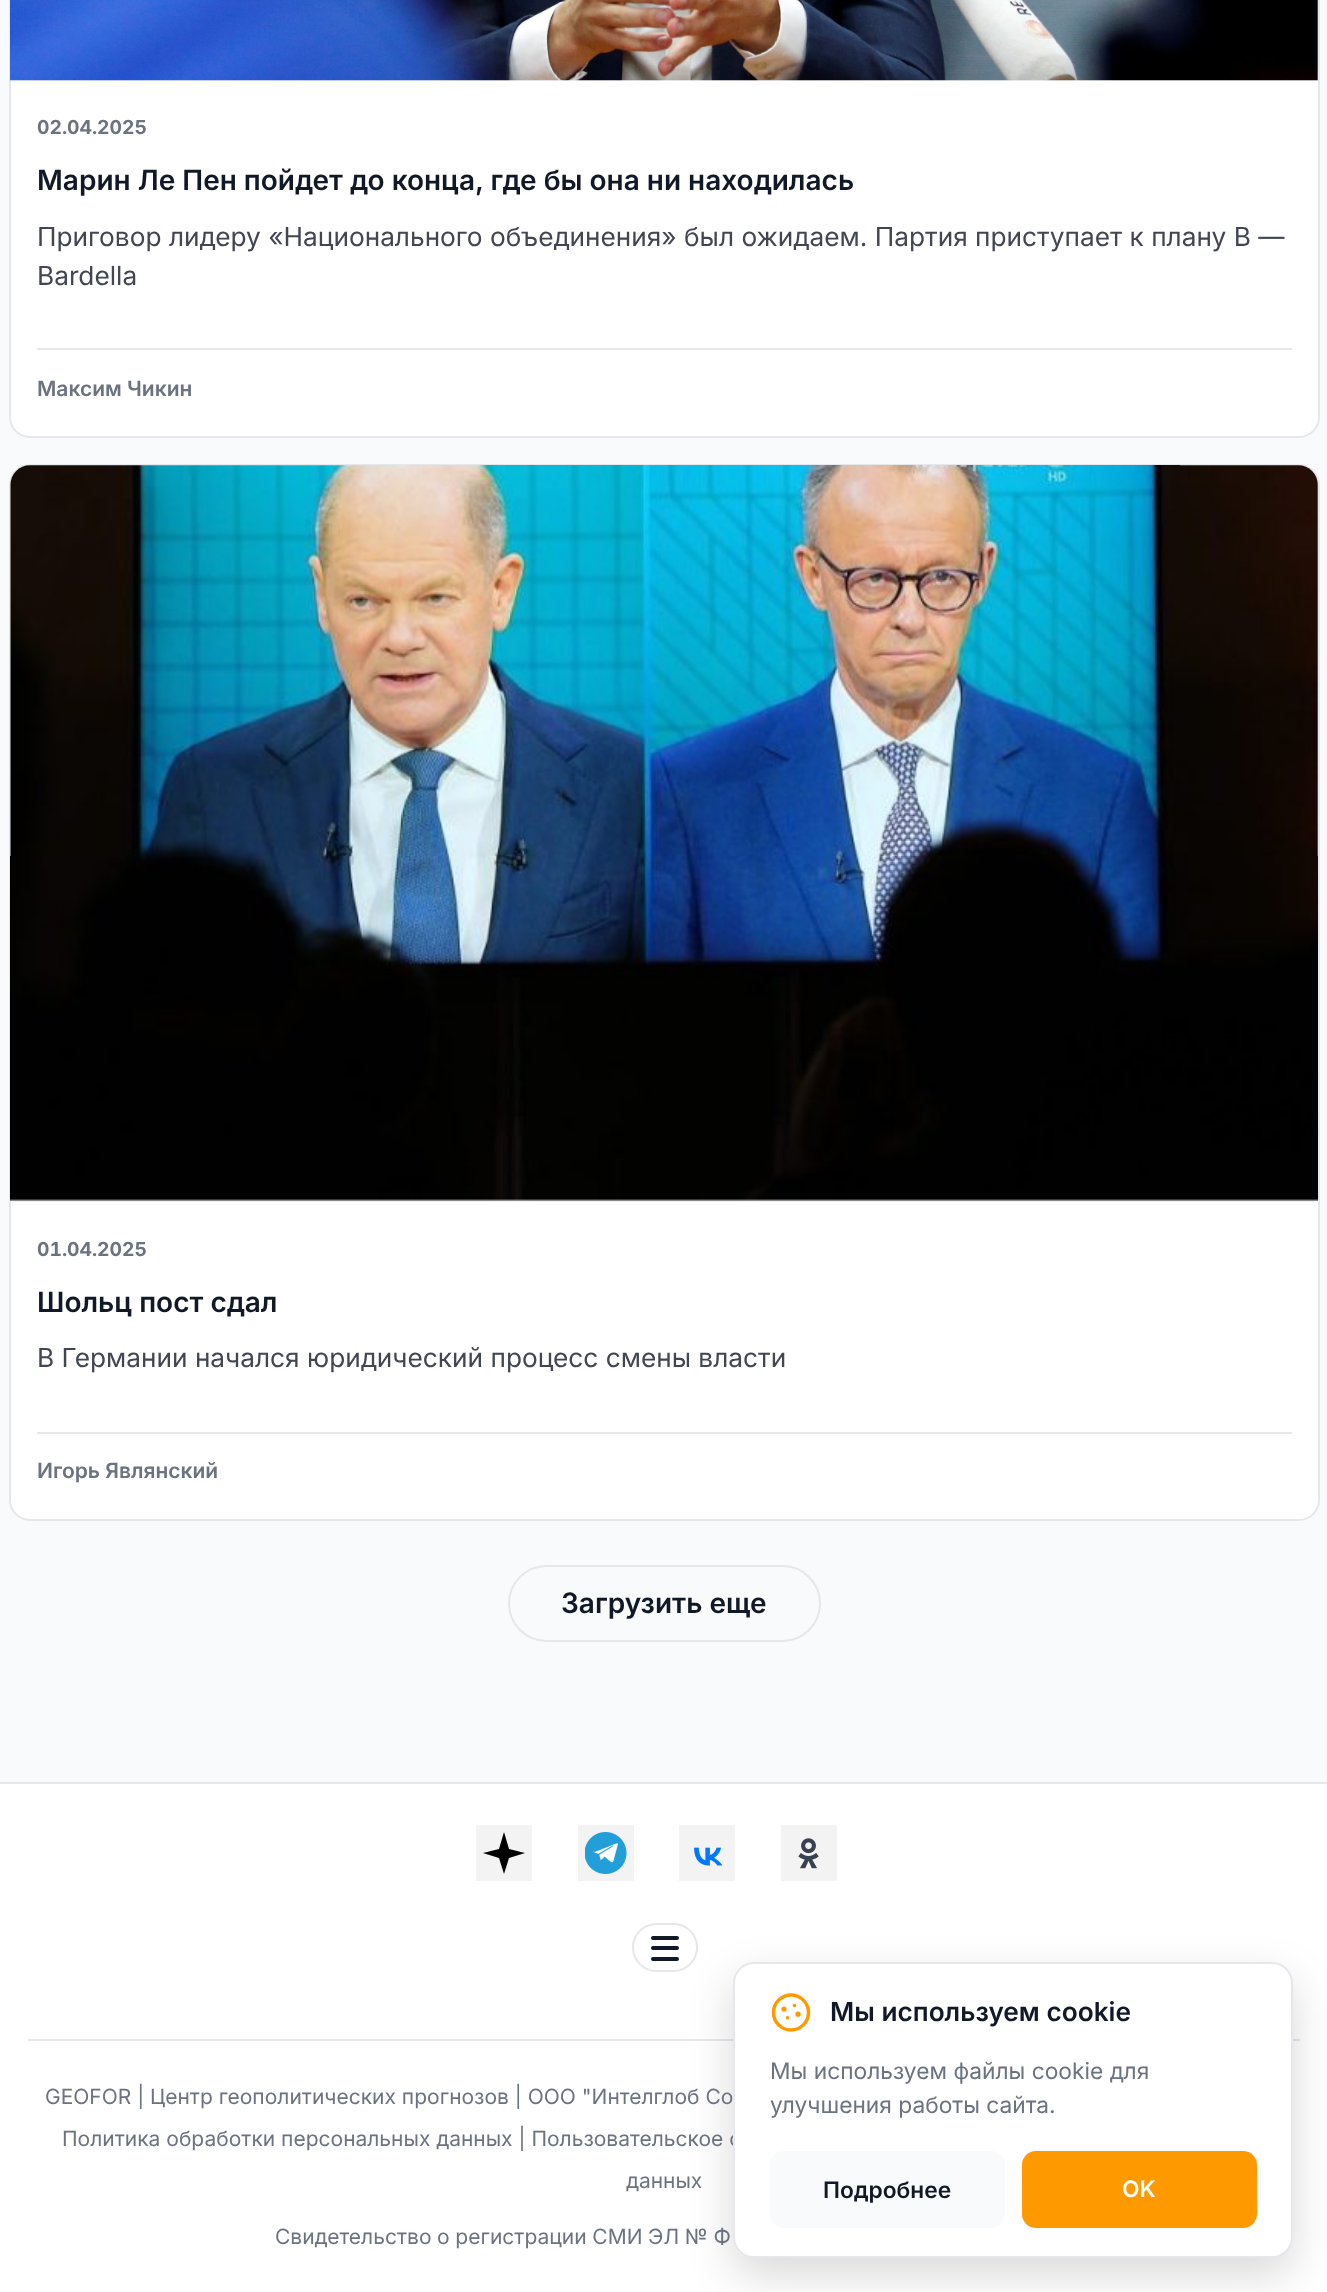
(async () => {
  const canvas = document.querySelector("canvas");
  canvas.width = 1327;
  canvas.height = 2292;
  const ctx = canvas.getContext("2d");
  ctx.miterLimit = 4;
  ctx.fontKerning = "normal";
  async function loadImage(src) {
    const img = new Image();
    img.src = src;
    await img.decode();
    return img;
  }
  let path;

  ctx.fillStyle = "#ffffff";
  ctx.fillRect(0, 0, 1327, 2292);
  ctx.fillStyle = "#f9fafb";
  ctx.fillRect(0, 0, 1327, 1782);
  ctx.fillStyle = "#ffffff";
  ctx.beginPath();
  ctx.roundRect(10, -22, 1309, 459, 20);
  ctx.fill();
  ctx.strokeStyle = "#e5e7eb";
  ctx.lineWidth = 2;
  ctx.stroke();
  ctx.fillStyle = "#f3f4f6";
  ctx.fillRect(11, 0, 1307, 81);
  ctx.drawImage(await loadImage("img/1.png"), 10, 0, 1308, 81);
  ctx.fillStyle = "#e5e7eb";
  ctx.fillRect(37, 348, 1255, 2);
  ctx.fillStyle = "#ffffff";
  ctx.beginPath();
  ctx.roundRect(10, 465, 1309, 1055, 20);
  ctx.fill();
  ctx.stroke();
  ctx.fillStyle = "#f3f4f6";
  ctx.beginPath();
  ctx.roundRect(11, 466, 1307, 736, [19, 19, 0, 0]);
  ctx.fill();
  ctx.drawImage(await loadImage("img/2.png"), 10, 465, 1308, 736);
  ctx.fillStyle = "#e5e7eb";
  ctx.fillRect(37, 1432, 1255, 2);
  ctx.beginPath();
  ctx.roundRect(509, 1566, 311, 75, 37.5);
  ctx.stroke();
  for (const [x, y, w, h, color] of [
    [0, 1782, 1327, 2, "#e5e7eb"],
    [28, 2039, 1272, 2, "#e5e7eb"],
    [476, 1825, 56, 56, "#f3f3f3"],
  ]) {
    ctx.fillStyle = color;
    ctx.fillRect(x, y, w, h);
  }
  ctx.fillStyle = "#000000";
  path = new Path2D("M504 1832L509 1849L525 1853L509 1858L504 1874L499 1858L483 1853L499 1849Z");
  ctx.fill(path);
  ctx.fillStyle = "#f3f3f3";
  ctx.fillRect(578, 1825, 56, 56);
  ctx.drawImage(await loadImage("img/3.png"), 585, 1832, 42, 42);
  ctx.fillRect(679, 1825, 56, 56);
  ctx.drawImage(await loadImage("img/4.png"), 694, 1847, 29, 19);
  ctx.fillRect(781, 1825, 56, 56);
  ctx.drawImage(await loadImage("img/5.png"), 798, 1838, 21, 31);
  ctx.beginPath();
  ctx.roundRect(633, 1924, 64, 47, 23.5);
  ctx.stroke();
  ctx.fillStyle = "#111827";
  ctx.beginPath();
  ctx.roundRect(651, 1936, 28, 4, 2);
  ctx.fill();
  ctx.beginPath();
  ctx.roundRect(651, 1946, 28, 4, 2);
  ctx.fill();
  ctx.beginPath();
  ctx.roundRect(651, 1957, 28, 4, 2);
  ctx.fill();
  ctx.fillStyle = "rgba(0, 0, 0, 0.15)";
  ctx.filter = "blur(22px)";
  ctx.beginPath();
  ctx.roundRect(733, 1979, 560, 296, 21);
  ctx.fill();
  ctx.filter = "none";
  ctx.font = "bold 19.25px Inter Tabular";
  ctx.fillStyle = "#6b7280";
  ctx.fillText("02.04.2025", 37, 134);
  ctx.font = "600 28px Inter";
  ctx.fillStyle = "#111827";
  ctx.fillText("Марин Ле Пен пойдет до конца, где бы она ни находилась", 37, 190);
  ctx.font = "26.25px Inter";
  ctx.fillStyle = "#414652";
  ctx.fillText("Приговор лидеру «Национального объединения» был ожидаем. Партия приступает к плану B —", 37, 246);
  ctx.fillText("Bardella", 37, 285);
  ctx.font = "600 21px Inter";
  ctx.fillStyle = "#6b7280";
  ctx.fillText("Максим Чикин", 37, 396);
  ctx.font = "bold 19.25px Inter Tabular";
  ctx.fillText("01.04.2025", 37, 1256);
  ctx.font = "600 28px Inter";
  ctx.fillStyle = "#111827";
  ctx.fillText("Шольц пост сдал", 37, 1312);
  ctx.font = "26.25px Inter";
  ctx.fillStyle = "#414652";
  ctx.fillText("В Германии начался юридический процесс смены власти", 37, 1367);
  ctx.font = "600 21px Inter";
  ctx.fillStyle = "#6b7280";
  ctx.fillText("Игорь Являнский", 37, 1478);
  ctx.font = "600 28px Inter";
  ctx.fillStyle = "#111827";
  ctx.fillText("Загрузить еще", 561, 1613);
  ctx.font = "21px Inter";
  ctx.fillStyle = "#6b7280";
  for (const [text, x, y] of [
    ["GEOFOR | Центр геополитических прогнозов | ООО \"Интелглоб Со", 45, 2104],
    ["Политика обработки персональных данных | Пользовательское с", 62, 2146],
    ["данных", 626, 2188],
  ]) {
    ctx.fillText(text, x, y);
  }
  ctx.font = "21px Inter Tabular";
  ctx.fillText("Свидетельство о регистрации СМИ ЭЛ № Ф", 275, 2244);
  ctx.fillStyle = "#ffffff";
  ctx.beginPath();
  ctx.roundRect(734, 1963, 558, 294, 20);
  ctx.fill();
  ctx.stroke();
  ctx.beginPath();
  ctx.arc(791, 2012.5, 17.5, 0, Math.PI * 2);
  ctx.strokeStyle = "#ff9900";
  ctx.lineWidth = 3.5;
  ctx.stroke();
  ctx.fillStyle = "#ff9900";
  ctx.beginPath();
  ctx.arc(784, 2009, 2.6, 0, Math.PI * 2);
  ctx.fill();
  ctx.beginPath();
  ctx.arc(794.5, 2005.5, 1.8, 0, Math.PI * 2);
  ctx.fill();
  ctx.beginPath();
  ctx.arc(798, 2014.2, 2.6, 0, Math.PI * 2);
  ctx.fill();
  ctx.beginPath();
  ctx.arc(787.5, 2017.8, 1.8, 0, Math.PI * 2);
  ctx.fill();
  ctx.font = "600 26.25px Inter";
  ctx.fillStyle = "#111827";
  ctx.fillText("Мы используем cookie", 830, 2021);
  ctx.font = "22.75px Inter";
  ctx.fillStyle = "#6b7280";
  ctx.fillText("Мы используем файлы cookie для", 770, 2079);
  ctx.fillText("улучшения работы сайта.", 770, 2113);
  ctx.fillStyle = "#f9fafb";
  ctx.beginPath();
  ctx.roundRect(770, 2151, 235, 77, 14);
  ctx.fill();
  ctx.font = "600 22.75px Inter";
  ctx.fillStyle = "#111827";
  ctx.fillText("Подробнее", 823, 2198);
  ctx.fillStyle = "#ff9900";
  ctx.beginPath();
  ctx.roundRect(1022, 2151, 235, 77, 14);
  ctx.fill();
  ctx.fillStyle = "#ffffff";
  ctx.fillText("OK", 1122, 2197);
})();
